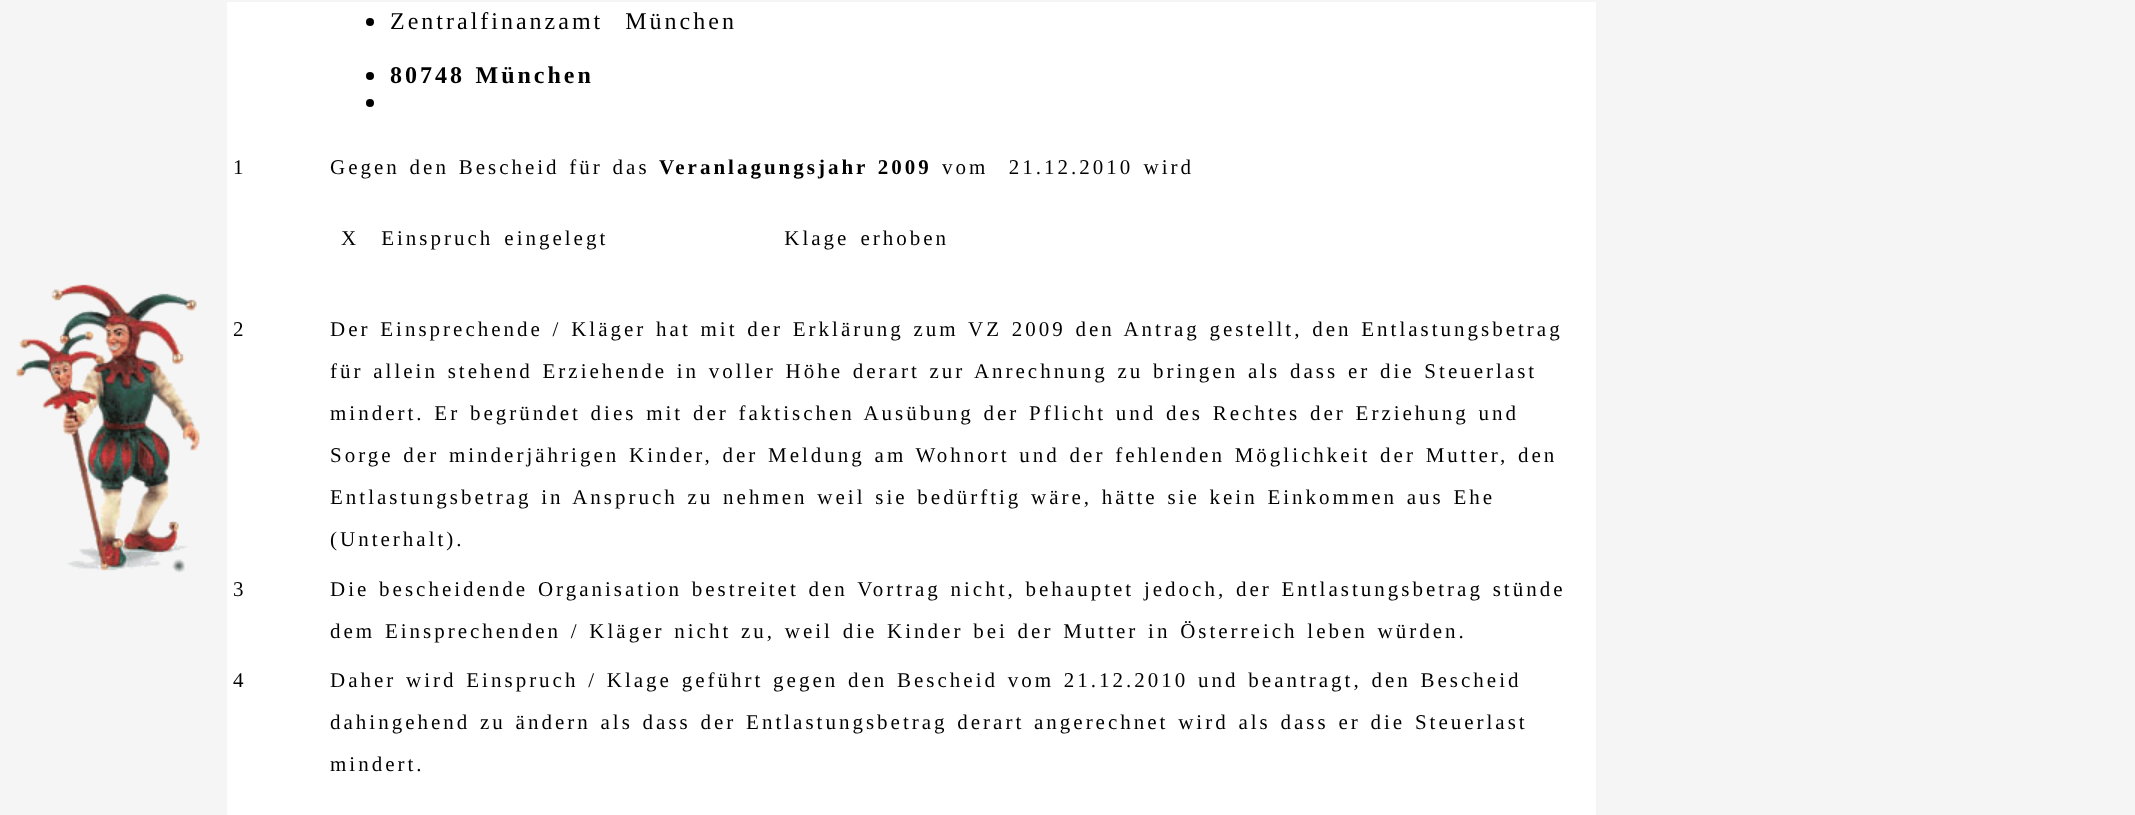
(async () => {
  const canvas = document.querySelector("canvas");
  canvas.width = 2135;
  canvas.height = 815;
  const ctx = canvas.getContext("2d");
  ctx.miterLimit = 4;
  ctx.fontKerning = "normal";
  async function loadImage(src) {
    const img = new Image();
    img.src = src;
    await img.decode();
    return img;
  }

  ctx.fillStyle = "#f5f5f5";
  ctx.fillRect(0, 0, 2135, 815);
  ctx.drawImage(await loadImage("img/1.png"), 16, 284, 184, 289);
  ctx.fillStyle = "#ffffff";
  ctx.fillRect(227, 2, 1369, 813);
  ctx.fillStyle = "#000000";
  ctx.beginPath();
  ctx.arc(370, 22, 4, 0, Math.PI * 2);
  ctx.fill();
  ctx.beginPath();
  ctx.arc(370, 76, 4, 0, Math.PI * 2);
  ctx.fill();
  ctx.beginPath();
  ctx.arc(370, 103, 4, 0, Math.PI * 2);
  ctx.fill();
  ctx.letterSpacing = "3px";
  ctx.wordSpacing = "2px";
  ctx.font = "24px Liberation Serif";
  ctx.fillText("Zentralfinanzamt  München", 390, 29);
  ctx.wordSpacing = "1.5px";
  ctx.font = "bold 24px Liberation Serif";
  ctx.fillText("80748 München", 390, 83);
  ctx.wordSpacing = "0px";
  ctx.font = "21px Liberation Serif";
  ctx.fillText("1", 233, 174);
  ctx.wordSpacing = "1.5px";
  ctx.fillText("Gegen den Bescheid für das", 330, 174);
  ctx.font = "bold 21px Liberation Serif";
  ctx.fillText("Veranlagungsjahr 2009", 659, 174);
  ctx.wordSpacing = "2px";
  ctx.font = "21px Liberation Serif";
  ctx.fillText("vom  21.12.2010 wird", 942, 174);
  ctx.wordSpacing = "2.75px";
  ctx.fillText("X  Einspruch eingelegt                Klage erhoben", 341, 245);
  ctx.wordSpacing = "0px";
  ctx.fillText("2", 233, 336);
  ctx.wordSpacing = "1.5px";
  for (const [text, x, y] of [
    ["Der Einsprechende / Kläger hat mit der Erklärung zum VZ 2009 den Antrag gestellt, den Entlastungsbetrag", 330, 336],
    ["für allein stehend Erziehende in voller Höhe derart zur Anrechnung zu bringen als dass er die Steuerlast", 330, 378],
    ["mindert. Er begründet dies mit der faktischen Ausübung der Pflicht und des Rechtes der Erziehung und", 330, 420],
    ["Sorge der minderjährigen Kinder, der Meldung am Wohnort und der fehlenden Möglichkeit der Mutter, den", 330, 462],
    ["Entlastungsbetrag in Anspruch zu nehmen weil sie bedürftig wäre, hätte sie kein Einkommen aus Ehe", 330, 504],
  ]) {
    ctx.fillText(text, x, y);
  }
  ctx.wordSpacing = "0px";
  ctx.fillText("(Unterhalt).", 330, 546);
  ctx.fillText("3", 233, 596);
  ctx.wordSpacing = "1.5px";
  ctx.fillText("Die bescheidende Organisation bestreitet den Vortrag nicht, behauptet jedoch, der Entlastungsbetrag stünde", 330, 596);
  ctx.fillText("dem Einsprechenden / Kläger nicht zu, weil die Kinder bei der Mutter in Österreich leben würden.", 330, 638);
  ctx.wordSpacing = "0px";
  ctx.fillText("4", 233, 687);
  ctx.wordSpacing = "1.5px";
  ctx.fillText("Daher wird Einspruch / Klage geführt gegen den Bescheid vom 21.12.2010 und beantragt, den Bescheid", 330, 687);
  ctx.fillText("dahingehend zu ändern als dass der Entlastungsbetrag derart angerechnet wird als dass er die Steuerlast", 330, 729);
  ctx.wordSpacing = "0px";
  ctx.fillText("mindert.", 330, 771);
})();
